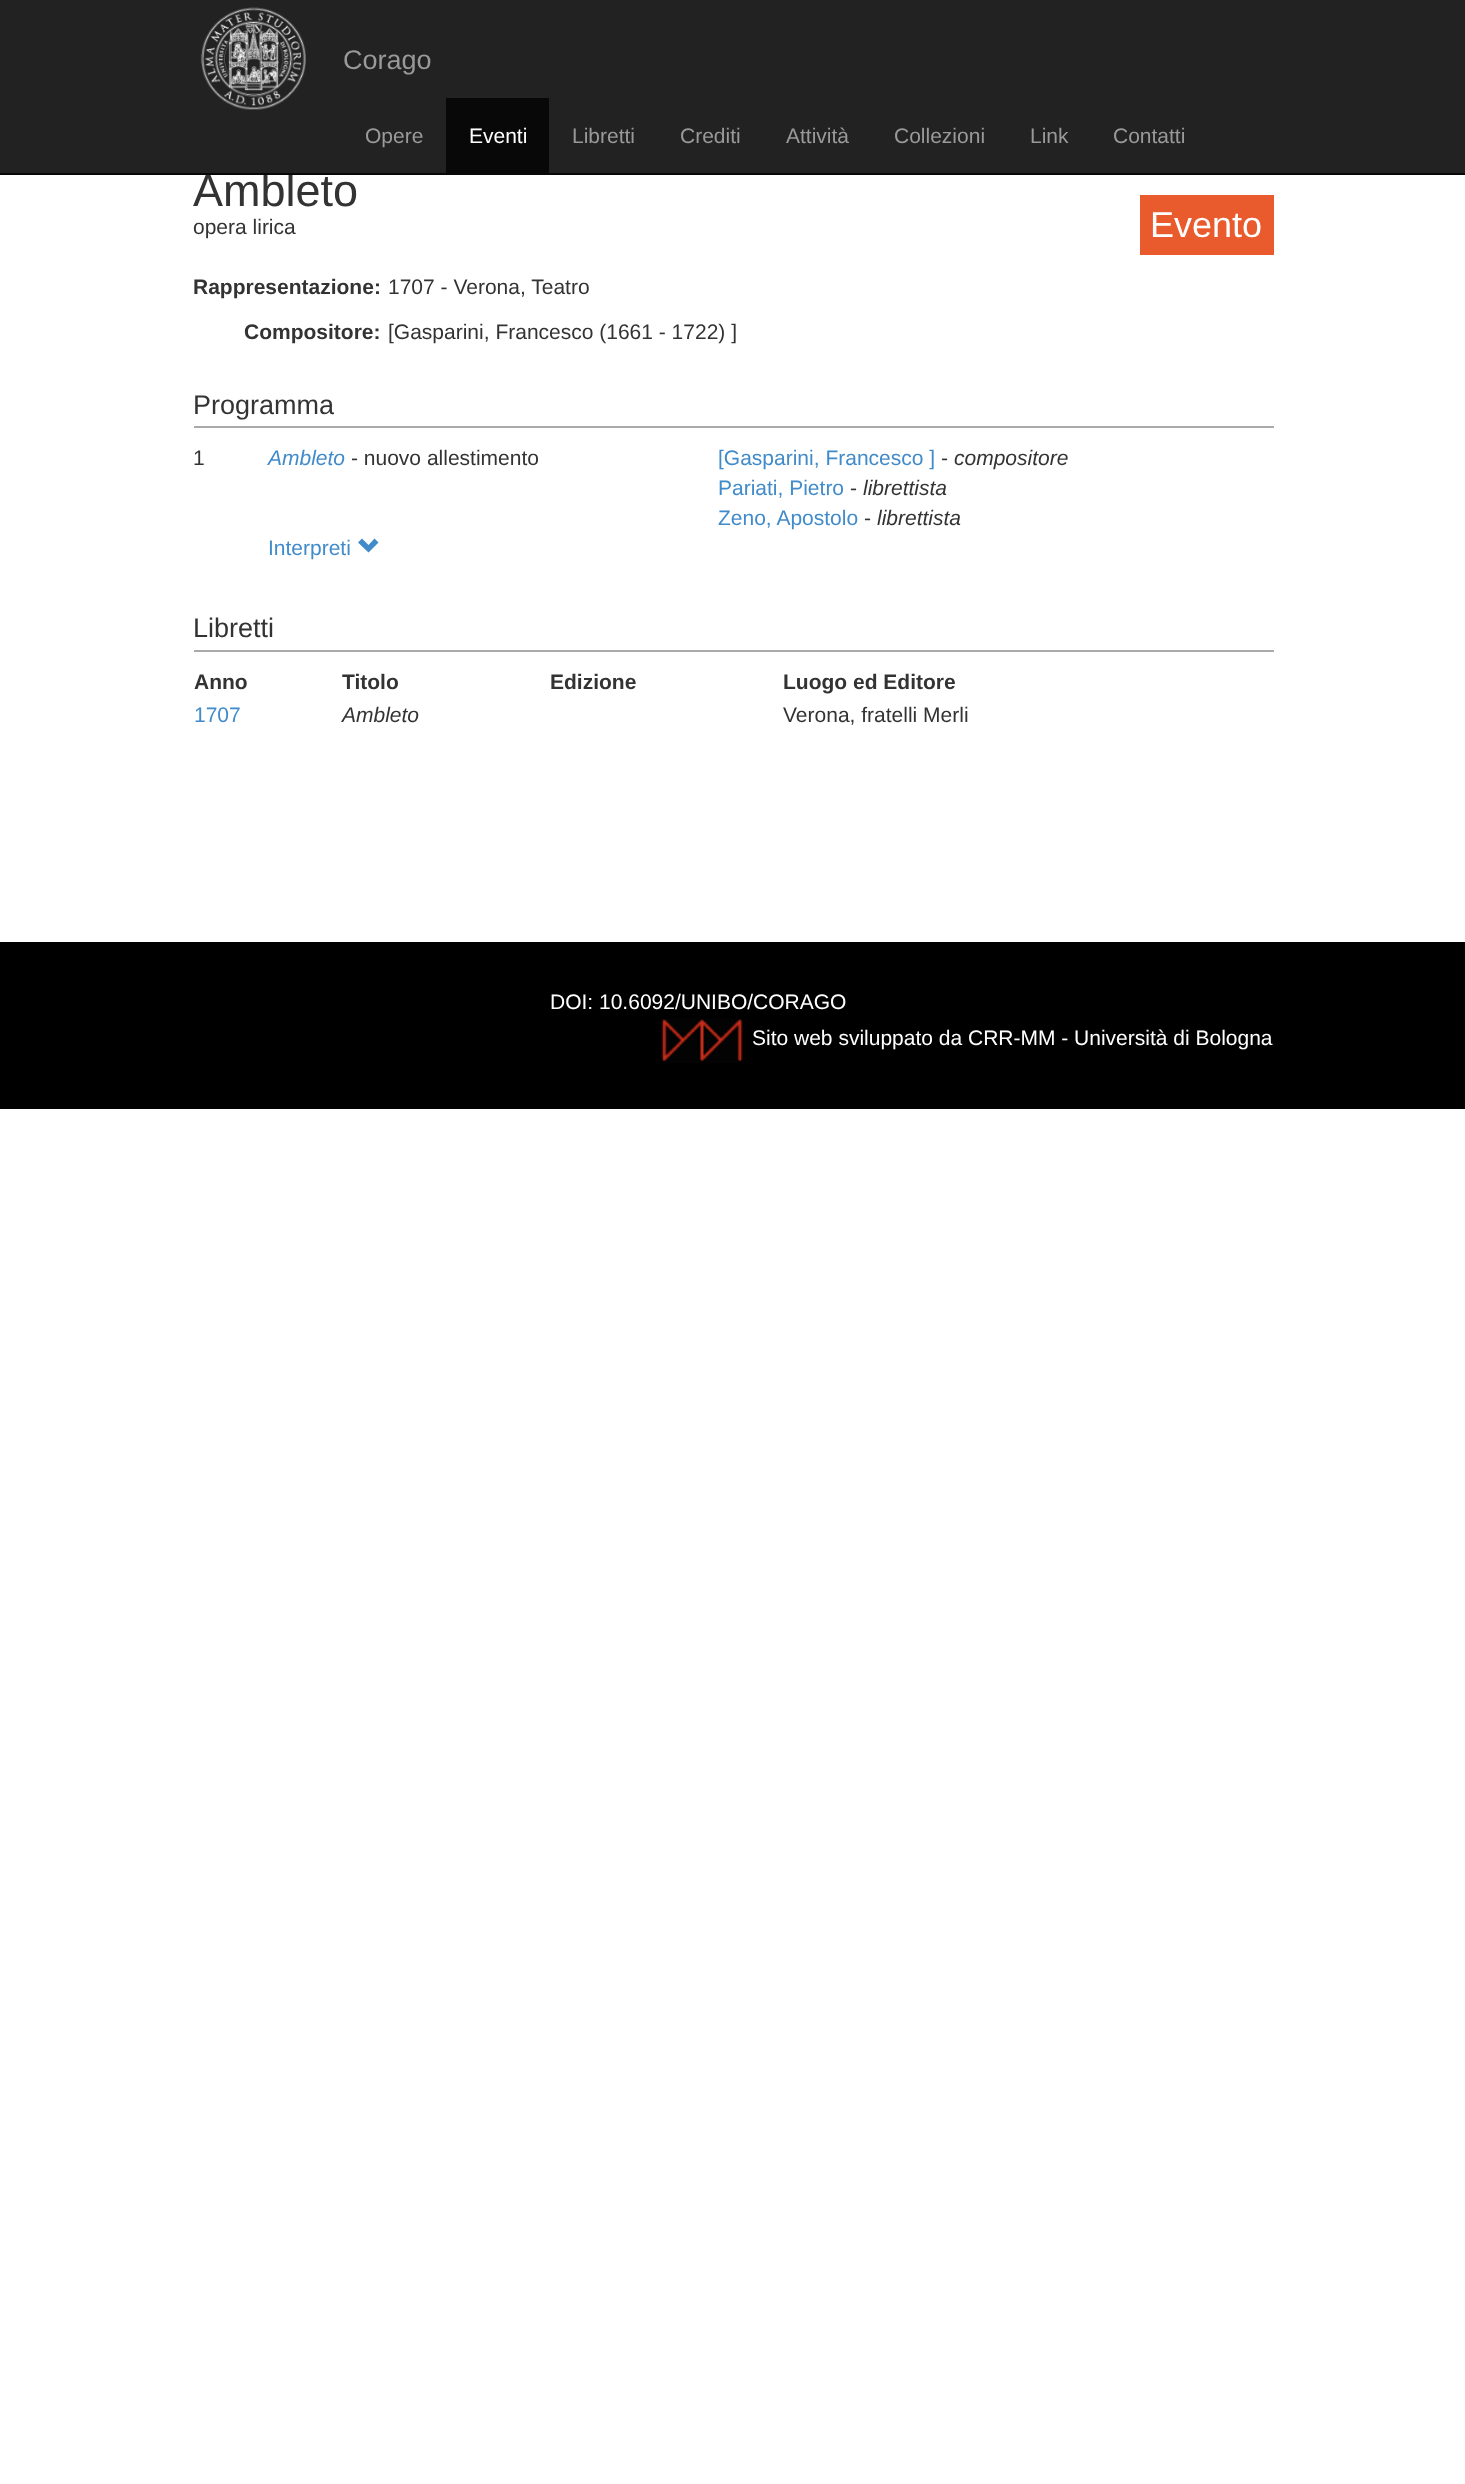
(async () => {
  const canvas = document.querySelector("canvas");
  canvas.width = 1465;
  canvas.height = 2484;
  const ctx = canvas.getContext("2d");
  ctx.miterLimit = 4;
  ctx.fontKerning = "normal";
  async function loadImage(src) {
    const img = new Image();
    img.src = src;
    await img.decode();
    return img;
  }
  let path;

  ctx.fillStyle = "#ffffff";
  ctx.fillRect(0, 0, 1465, 2484);
  ctx.fillStyle = "#222222";
  ctx.fillRect(0, 0, 1465, 173);
  ctx.drawImage(await loadImage("img/1.png"), 200, 7, 106, 103);
  for (const [x, y, w, h, color] of [
    [446, 98, 103, 75, "#080808"],
    [1140, 195, 134, 60, "#e95b2d"],
    [194, 426, 1080, 2, "#aaaaaa"],
  ]) {
    ctx.fillStyle = color;
    ctx.fillRect(x, y, w, h);
  }
  ctx.fillStyle = "#428bca";
  path = new Path2D("M358 542.5L368.5 552.5L378.5 542.5L374.5 538.5L368.5 545L362 538.5Z");
  ctx.fill(path);
  ctx.fillStyle = "#aaaaaa";
  ctx.fillRect(194, 650, 1080, 2);
  ctx.fillStyle = "#000000";
  ctx.fillRect(0, 942, 1465, 167);
  ctx.drawImage(await loadImage("img/2.png"), 661, 1018, 82, 45);
  ctx.font = "27px Liberation Sans";
  ctx.fillStyle = "#999999";
  ctx.fillText("Corago", 343, 69);
  ctx.font = "21px Liberation Sans";
  ctx.fillText("Opere", 365, 143);
  ctx.fillStyle = "#ffffff";
  ctx.fillText("Eventi", 469, 143);
  ctx.fillStyle = "#999999";
  for (const [text, x, y] of [
    ["Libretti", 572, 143],
    ["Crediti", 680, 143],
    ["Attività", 786, 143],
    ["Collezioni", 894, 143],
    ["Link", 1030, 143],
    ["Contatti", 1113, 143],
  ]) {
    ctx.fillText(text, x, y);
  }
  ctx.font = "45px Liberation Sans";
  ctx.fillStyle = "#333333";
  ctx.fillText("Ambleto", 193, 206);
  ctx.fillStyle = "#080808";
  ctx.fillRect(0, 173, 1465, 2);
  ctx.font = "21px Liberation Sans";
  ctx.fillStyle = "#333333";
  ctx.fillText("opera lirica", 193, 234);
  ctx.font = "36px Liberation Sans";
  ctx.fillStyle = "#ffffff";
  ctx.fillText("Evento", 1150, 237);
  ctx.font = "bold 21px Liberation Sans";
  ctx.fillStyle = "#333333";
  ctx.fillText("Rappresentazione:", 193, 294);
  ctx.font = "21px Liberation Sans";
  ctx.fillText("1707 - Verona, Teatro", 388, 294);
  ctx.font = "bold 21px Liberation Sans";
  ctx.fillText("Compositore:", 244, 339);
  ctx.font = "21px Liberation Sans";
  ctx.fillText("[Gasparini, Francesco (1661 - 1722) ]", 388, 339);
  ctx.font = "27px Liberation Sans";
  ctx.fillText("Programma", 193, 414);
  ctx.font = "21px Liberation Sans";
  ctx.fillText("1", 193, 465);
  ctx.font = "italic 21px Liberation Sans";
  ctx.fillStyle = "#428bca";
  ctx.fillText("Ambleto", 268, 465);
  ctx.font = "21px Liberation Sans";
  ctx.fillStyle = "#333333";
  ctx.fillText("- nuovo allestimento", 351, 465);
  ctx.fillStyle = "#428bca";
  ctx.fillText("[Gasparini, Francesco ]", 718, 465);
  ctx.fillStyle = "#333333";
  ctx.fillText("-", 941, 465);
  ctx.font = "italic 21px Liberation Sans";
  ctx.fillText("compositore", 954, 465);
  ctx.font = "21px Liberation Sans";
  ctx.fillStyle = "#428bca";
  ctx.fillText("Pariati, Pietro", 718, 495);
  ctx.fillStyle = "#333333";
  ctx.fillText("-", 850, 495);
  ctx.font = "italic 21px Liberation Sans";
  ctx.fillText("librettista", 863, 495);
  ctx.font = "21px Liberation Sans";
  ctx.fillStyle = "#428bca";
  ctx.fillText("Zeno, Apostolo", 718, 525);
  ctx.fillStyle = "#333333";
  ctx.fillText("-", 864, 525);
  ctx.font = "italic 21px Liberation Sans";
  ctx.fillText("librettista", 877, 525);
  ctx.font = "21px Liberation Sans";
  ctx.fillStyle = "#428bca";
  ctx.fillText("Interpreti", 268, 555);
  ctx.font = "27px Liberation Sans";
  ctx.fillStyle = "#333333";
  ctx.fillText("Libretti", 193, 637);
  ctx.font = "bold 21px Liberation Sans";
  for (const [text, x, y] of [
    ["Anno", 194, 689],
    ["Titolo", 342, 689],
    ["Edizione", 550, 689],
    ["Luogo ed Editore", 783, 689],
  ]) {
    ctx.fillText(text, x, y);
  }
  ctx.font = "21px Liberation Sans";
  ctx.fillStyle = "#428bca";
  ctx.fillText("1707", 194, 722);
  ctx.font = "italic 21px Liberation Sans";
  ctx.fillStyle = "#333333";
  ctx.fillText("Ambleto", 342, 722);
  ctx.font = "21px Liberation Sans";
  ctx.fillText("Verona, fratelli Merli", 783, 722);
  ctx.fillStyle = "#ffffff";
  ctx.fillText("DOI: 10.6092/UNIBO/CORAGO", 550, 1009);
  ctx.fillText("Sito web sviluppato da CRR-MM - Università di Bologna", 752, 1045);
})();
